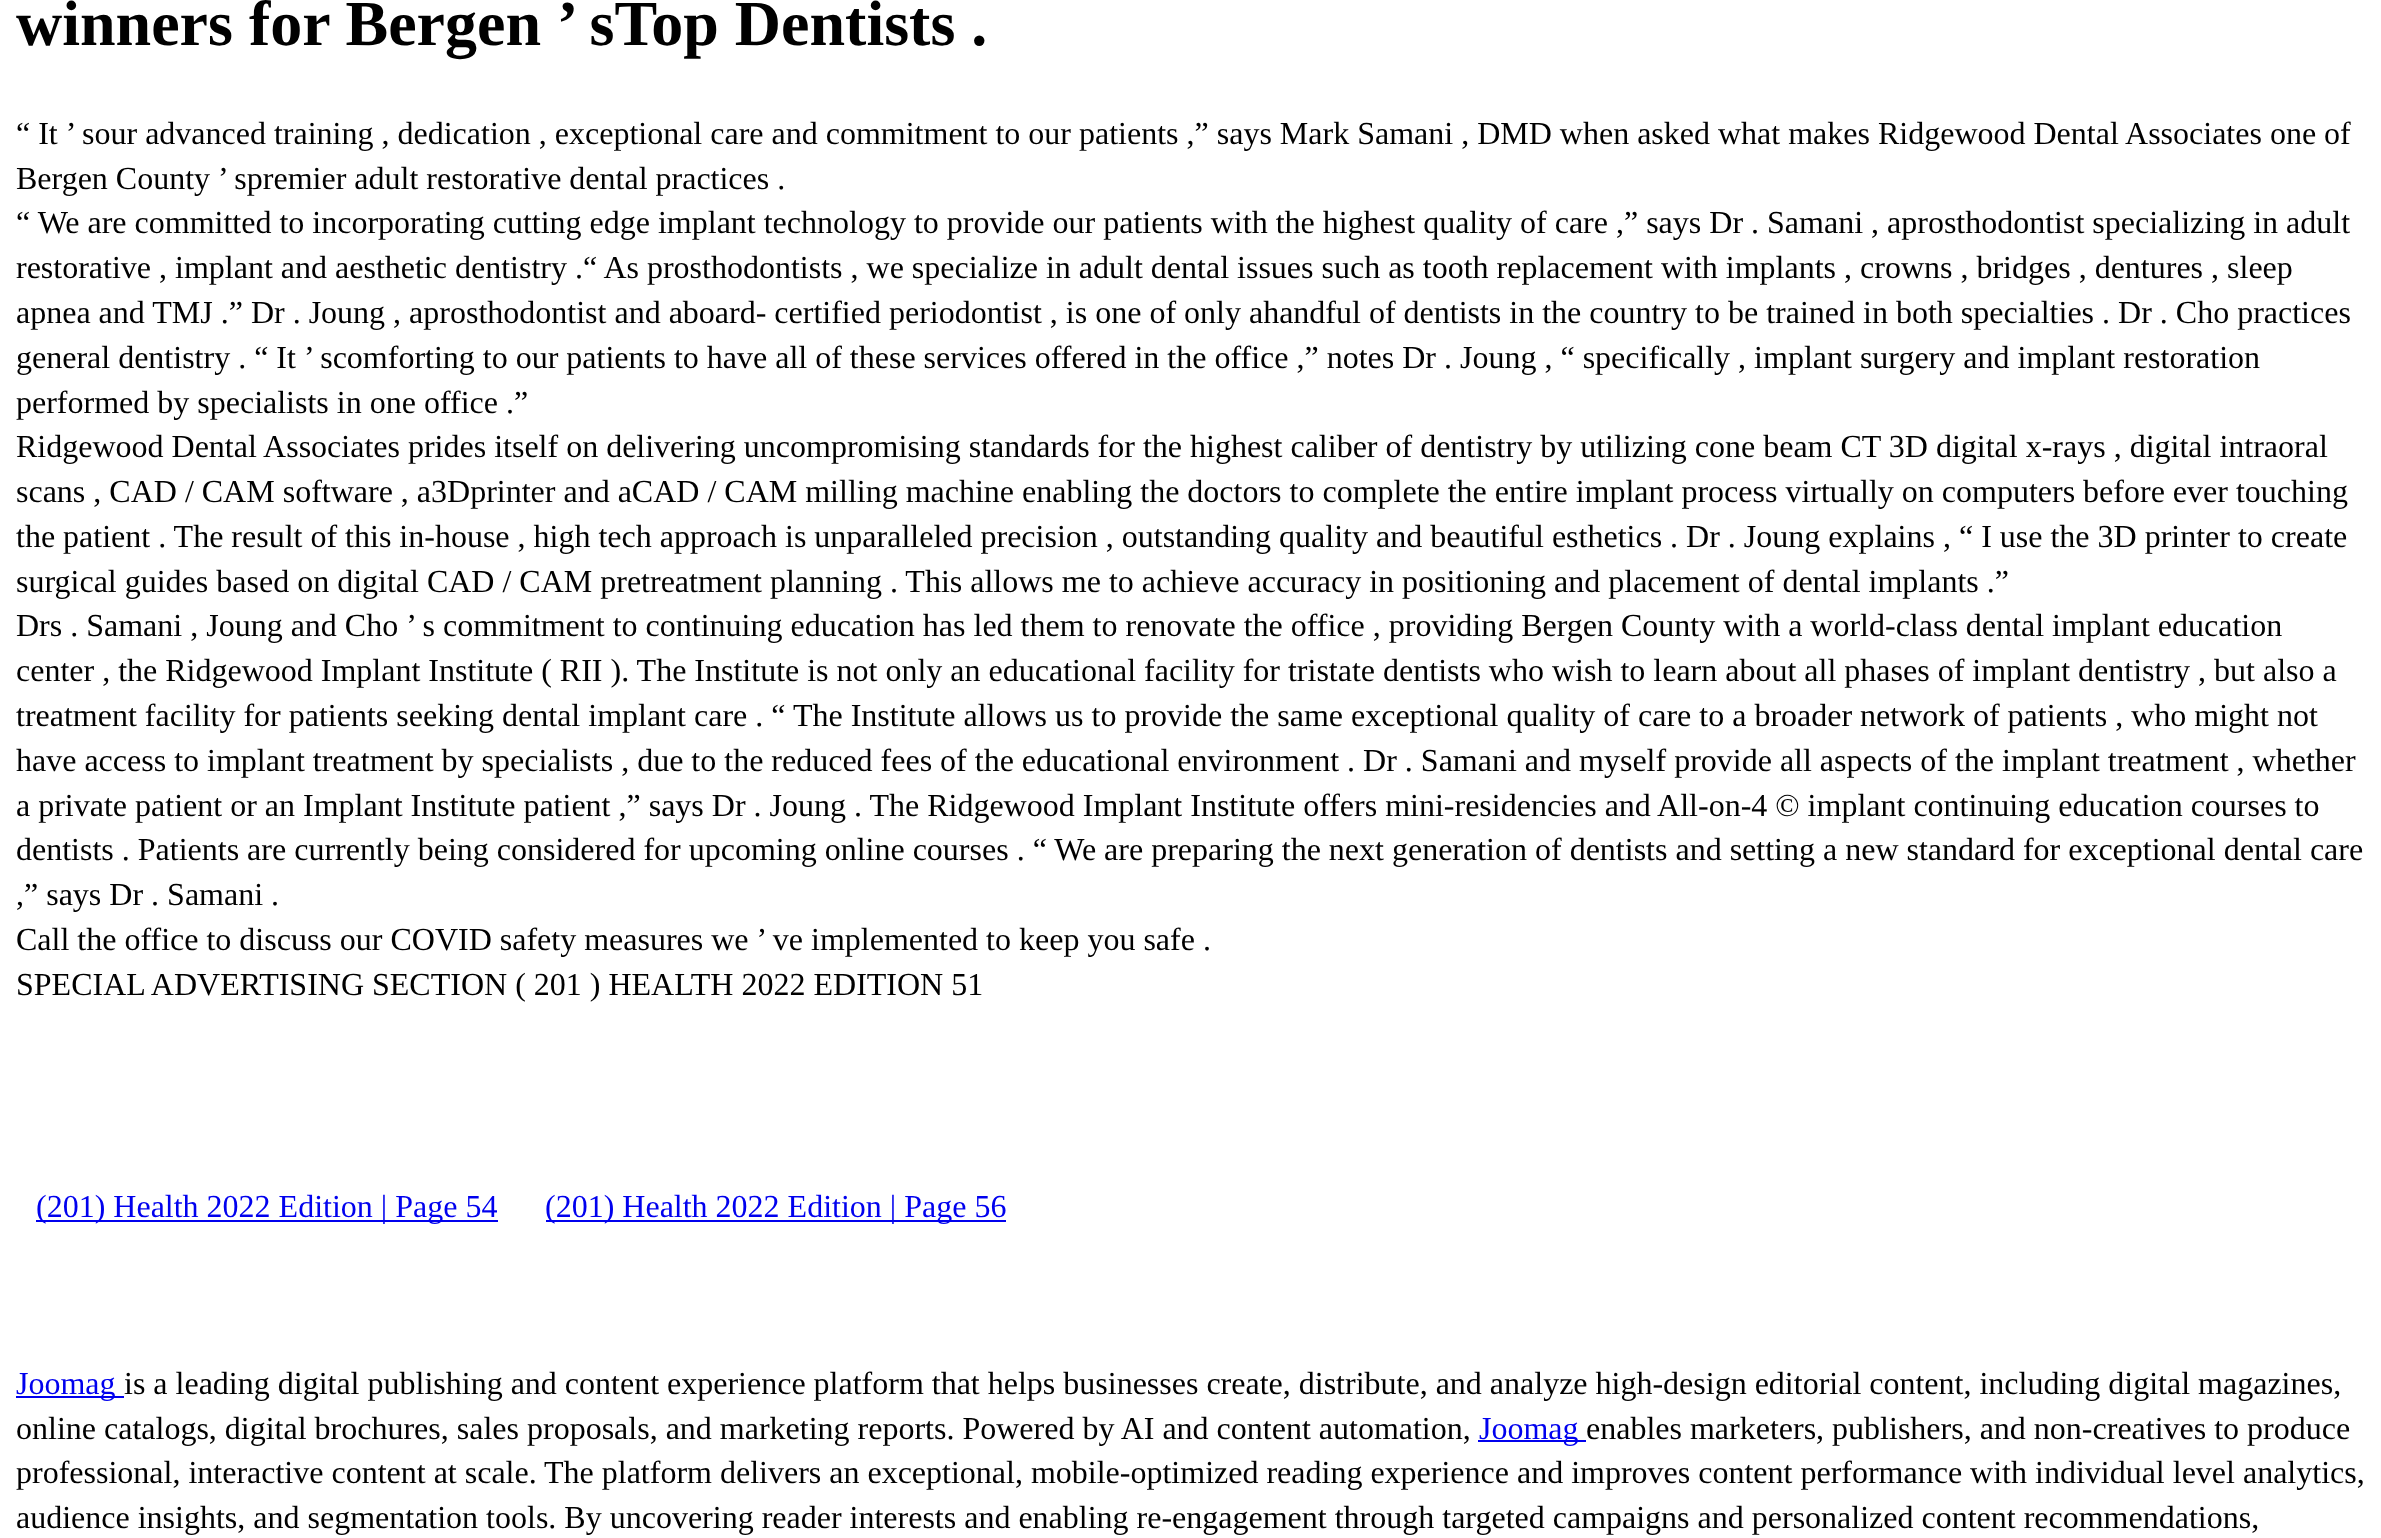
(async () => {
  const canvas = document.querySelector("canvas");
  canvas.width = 2381;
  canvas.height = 1538;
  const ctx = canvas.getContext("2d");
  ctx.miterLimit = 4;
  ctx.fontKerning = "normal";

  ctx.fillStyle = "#ffffff";
  ctx.fillRect(0, 0, 2381, 1538);
  for (const [x, y, w, h, color] of [
    [36, 1220, 462, 2, "#0000ee"],
    [546, 1220, 460, 2, "#0000ee"],
    [16, 1396, 108, 2, "#0000ee"],
    [1478, 1440, 108, 2, "#0000ee"],
  ]) {
    ctx.fillStyle = color;
    ctx.fillRect(x, y, w, h);
  }
  ctx.font = "bold 64px Liberation Serif";
  ctx.fillStyle = "#000000";
  ctx.fillText("winners for Bergen ’ sTop Dentists .", 16, 45);
  ctx.font = "32px Liberation Serif";
  for (const [text, x, y] of [
    ["“ It ’ sour advanced training , dedication , exceptional care and commitment to our patients ,” says Mark Samani , DMD when asked what makes Ridgewood Dental Associates one of", 16, 144],
    ["Bergen County ’ spremier adult restorative dental practices .", 16, 189],
    ["“ We are committed to incorporating cutting edge implant technology to provide our patients with the highest quality of care ,” says Dr . Samani , aprosthodontist specializing in adult", 16, 233],
    ["restorative , implant and aesthetic dentistry .“ As prosthodontists , we specialize in adult dental issues such as tooth replacement with implants , crowns , bridges , dentures , sleep", 16, 278],
    ["apnea and TMJ .” Dr . Joung , aprosthodontist and aboard- certified periodontist , is one of only ahandful of dentists in the country to be trained in both specialties . Dr . Cho practices", 16, 323],
    ["general dentistry . “ It ’ scomforting to our patients to have all of these services offered in the office ,” notes Dr . Joung , “ specifically , implant surgery and implant restoration", 16, 368],
    ["performed by specialists in one office .”", 16, 413],
    ["Ridgewood Dental Associates prides itself on delivering uncompromising standards for the highest caliber of dentistry by utilizing cone beam CT 3D digital x-rays , digital intraoral", 16, 457],
    ["scans , CAD / CAM software , a3Dprinter and aCAD / CAM milling machine enabling the doctors to complete the entire implant process virtually on computers before ever touching", 16, 502],
    ["the patient . The result of this in-house , high tech approach is unparalleled precision , outstanding quality and beautiful esthetics . Dr . Joung explains , “ I use the 3D printer to create", 16, 547],
    ["surgical guides based on digital CAD / CAM pretreatment planning . This allows me to achieve accuracy in positioning and placement of dental implants .”", 16, 592],
    ["Drs . Samani , Joung and Cho ’ s commitment to continuing education has led them to renovate the office , providing Bergen County with a world-class dental implant education", 16, 636],
    ["center , the Ridgewood Implant Institute ( RII ). The Institute is not only an educational facility for tristate dentists who wish to learn about all phases of implant dentistry , but also a", 16, 681],
    ["treatment facility for patients seeking dental implant care . “ The Institute allows us to provide the same exceptional quality of care to a broader network of patients , who might not", 16, 726],
    ["have access to implant treatment by specialists , due to the reduced fees of the educational environment . Dr . Samani and myself provide all aspects of the implant treatment , whether", 16, 771],
    ["a private patient or an Implant Institute patient ,” says Dr . Joung . The Ridgewood Implant Institute offers mini-residencies and All-on-4 © implant continuing education courses to", 16, 816],
    ["dentists . Patients are currently being considered for upcoming online courses . “ We are preparing the next generation of dentists and setting a new standard for exceptional dental care", 16, 860],
    [",” says Dr . Samani .", 16, 905],
    ["Call the office to discuss our COVID safety measures we ’ ve implemented to keep you safe .", 16, 950],
    ["SPECIAL ADVERTISING SECTION ( 201 ) HEALTH 2022 EDITION 51", 16, 995],
  ]) {
    ctx.fillText(text, x, y);
  }
  ctx.fillStyle = "#0000ee";
  for (const [text, x, y] of [
    ["(201) Health 2022 Edition | Page 54", 36, 1217],
    ["(201) Health 2022 Edition | Page 56", 545, 1217],
    ["Joomag", 16, 1394],
  ]) {
    ctx.fillText(text, x, y);
  }
  ctx.fillStyle = "#000000";
  ctx.fillText("is a leading digital publishing and content experience platform that helps businesses create, distribute, and analyze high-design editorial content, including digital magazines,", 124, 1394);
  ctx.fillText("online catalogs, digital brochures, sales proposals, and marketing reports. Powered by AI and content automation,", 16, 1439);
  ctx.fillStyle = "#0000ee";
  ctx.fillText("Joomag", 1479, 1439);
  ctx.fillStyle = "#000000";
  for (const [text, x, y] of [
    ["enables marketers, publishers, and non-creatives to produce", 1586, 1439],
    ["professional, interactive content at scale.", 16, 1483],
    ["The platform delivers an exceptional, mobile-optimized reading experience and improves content performance with individual level analytics,", 544, 1483],
    ["audience insights, and segmentation tools. By uncovering reader interests and enabling re-engagement through targeted campaigns and personalized content recommendations,", 16, 1528],
  ]) {
    ctx.fillText(text, x, y);
  }
})();
